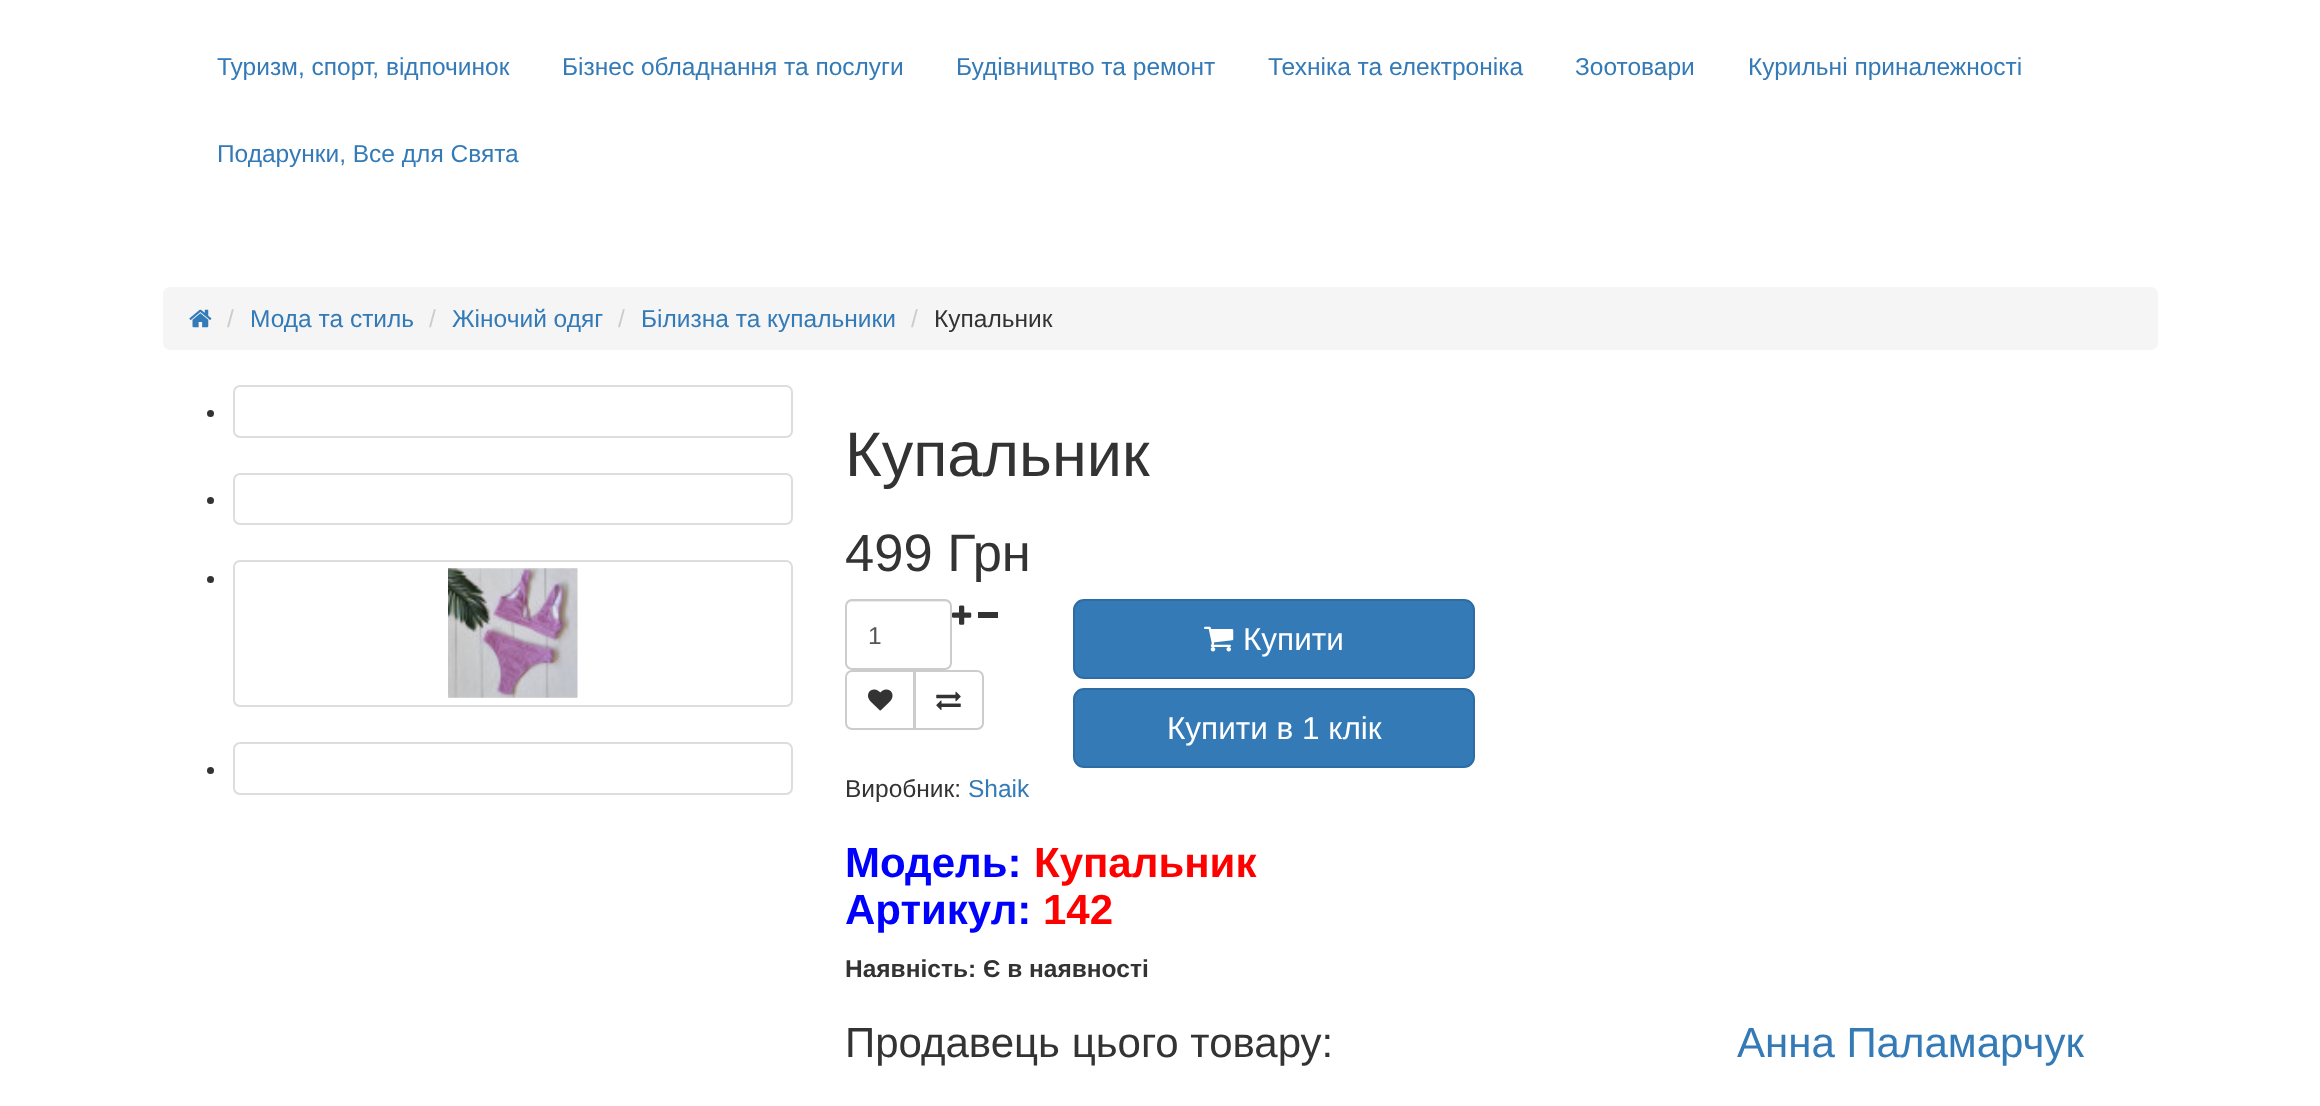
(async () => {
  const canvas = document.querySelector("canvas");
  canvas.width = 2320;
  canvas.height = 1106;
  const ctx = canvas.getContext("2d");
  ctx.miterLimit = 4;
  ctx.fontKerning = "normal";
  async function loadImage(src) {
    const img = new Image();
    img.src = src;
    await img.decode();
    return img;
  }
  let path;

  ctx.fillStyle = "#ffffff";
  ctx.fillRect(0, 0, 2320, 1106);
  ctx.fillStyle = "#f5f5f5";
  ctx.beginPath();
  ctx.roundRect(163, 287, 1995, 63, 7);
  ctx.fill();
  ctx.drawImage(await loadImage("img/1.png"), 189, 309, 23, 19);
  ctx.fillStyle = "#333333";
  ctx.beginPath();
  ctx.arc(210.5, 413.5, 3.5, 0, Math.PI * 2);
  ctx.fill();
  ctx.beginPath();
  ctx.roundRect(234, 386, 558, 51, 6);
  ctx.strokeStyle = "#dddddd";
  ctx.lineWidth = 2;
  ctx.stroke();
  ctx.beginPath();
  ctx.arc(210.5, 500.5, 3.5, 0, Math.PI * 2);
  ctx.fill();
  ctx.beginPath();
  ctx.roundRect(234, 474, 558, 50, 6);
  ctx.stroke();
  ctx.beginPath();
  ctx.arc(210.5, 579.5, 3.5, 0, Math.PI * 2);
  ctx.fill();
  ctx.beginPath();
  ctx.roundRect(234, 561, 558, 145, 6);
  ctx.stroke();
  ctx.drawImage(await loadImage("img/2.png"), 448, 568, 130, 130);
  ctx.beginPath();
  ctx.arc(210.5, 770.5, 3.5, 0, Math.PI * 2);
  ctx.fill();
  ctx.beginPath();
  ctx.roundRect(234, 743, 558, 51, 6);
  ctx.stroke();
  ctx.drawImage(await loadImage("img/3.png"), 952, 605, 20, 20);
  ctx.fillRect(978, 612, 20, 6);
  ctx.fillStyle = "#ececec";
  path = new Path2D("M852 602H945C948 602 950 604 950 607C950 596 938 600 930 600H868C859 600 847 596 847 607C847 604 849 602 852 602Z");
  ctx.fill(path);
  ctx.beginPath();
  ctx.roundRect(846, 600, 105, 69, 6);
  ctx.strokeStyle = "#cccccc";
  ctx.stroke();
  ctx.beginPath();
  ctx.roundRect(846, 671, 68, 58, [6, 0, 0, 6]);
  ctx.stroke();
  ctx.drawImage(await loadImage("img/4.png"), 868, 689, 25, 22);
  ctx.fillStyle = "#ffffff";
  ctx.beginPath();
  ctx.roundRect(915, 671, 68, 58, [0, 6, 6, 0]);
  ctx.fill();
  ctx.stroke();
  ctx.drawImage(await loadImage("img/5.png"), 936, 691, 25, 19);
  ctx.fillStyle = "#337ab7";
  ctx.beginPath();
  ctx.roundRect(1074, 600, 400, 78, 10);
  ctx.fill();
  ctx.strokeStyle = "#2e6da4";
  ctx.stroke();
  ctx.drawImage(await loadImage("img/6.png"), 1204, 626, 30, 26);
  ctx.beginPath();
  ctx.roundRect(1074, 689, 400, 78, 10);
  ctx.fill();
  ctx.stroke();
  ctx.font = "24.5px Liberation Sans";
  for (const [text, x, y] of [
    ["Туризм, спорт, відпочинок", 217, 75],
    ["Бізнес обладнання та послуги", 562, 75],
    ["Будівництво та ремонт", 956, 75],
    ["Техніка та електроніка", 1268, 75],
    ["Зоотовари", 1575, 75],
    ["Курильні приналежності", 1748, 75],
    ["Подарунки, Все для Свята", 217, 162],
  ]) {
    ctx.fillText(text, x, y);
  }
  ctx.fillStyle = "#cccccc";
  ctx.fillText("/", 227, 327);
  ctx.fillStyle = "#337ab7";
  ctx.fillText("Мода та стиль", 250, 327);
  ctx.fillStyle = "#cccccc";
  ctx.fillText("/", 429, 327);
  ctx.fillStyle = "#337ab7";
  ctx.fillText("Жіночий одяг", 452, 327);
  ctx.fillStyle = "#cccccc";
  ctx.fillText("/", 618, 327);
  ctx.fillStyle = "#337ab7";
  ctx.fillText("Білизна та купальники", 641, 327);
  ctx.fillStyle = "#cccccc";
  ctx.fillText("/", 911, 327);
  ctx.fillStyle = "#333333";
  ctx.fillText("Купальник", 934, 327);
  ctx.font = "63px Liberation Sans";
  ctx.fillText("Купальник", 845, 476);
  ctx.font = "52.5px Liberation Sans";
  ctx.fillText("499 Грн", 845, 571);
  ctx.font = "24.5px Liberation Sans";
  ctx.fillStyle = "#555555";
  ctx.fillText("1", 868, 644);
  ctx.font = "31.5px Liberation Sans";
  ctx.fillStyle = "#ffffff";
  ctx.fillText("Купити", 1243, 650);
  ctx.fillText("Купити в 1 клік", 1167, 739);
  ctx.font = "24.5px Liberation Sans";
  ctx.fillStyle = "#333333";
  ctx.fillText("Виробник:", 845, 797);
  ctx.fillStyle = "#337ab7";
  ctx.fillText("Shaik", 968, 797);
  ctx.font = "bold 42px Liberation Sans";
  ctx.fillStyle = "#0000ff";
  ctx.fillText("Модель:", 845, 877);
  ctx.fillStyle = "#ff0000";
  ctx.fillText("Купальник", 1034, 877);
  ctx.fillStyle = "#0000ff";
  ctx.fillText("Артикул:", 845, 924);
  ctx.fillStyle = "#ff0000";
  ctx.fillText("142", 1043, 924);
  ctx.font = "bold 24.5px Liberation Sans";
  ctx.fillStyle = "#333333";
  ctx.fillText("Наявність: Є в наявності", 845, 977);
  ctx.font = "42px Liberation Sans";
  ctx.fillText("Продавець цього товару:", 845, 1057);
  ctx.fillStyle = "#337ab7";
  ctx.fillText("Анна Паламарчук", 1737, 1057);
})();
